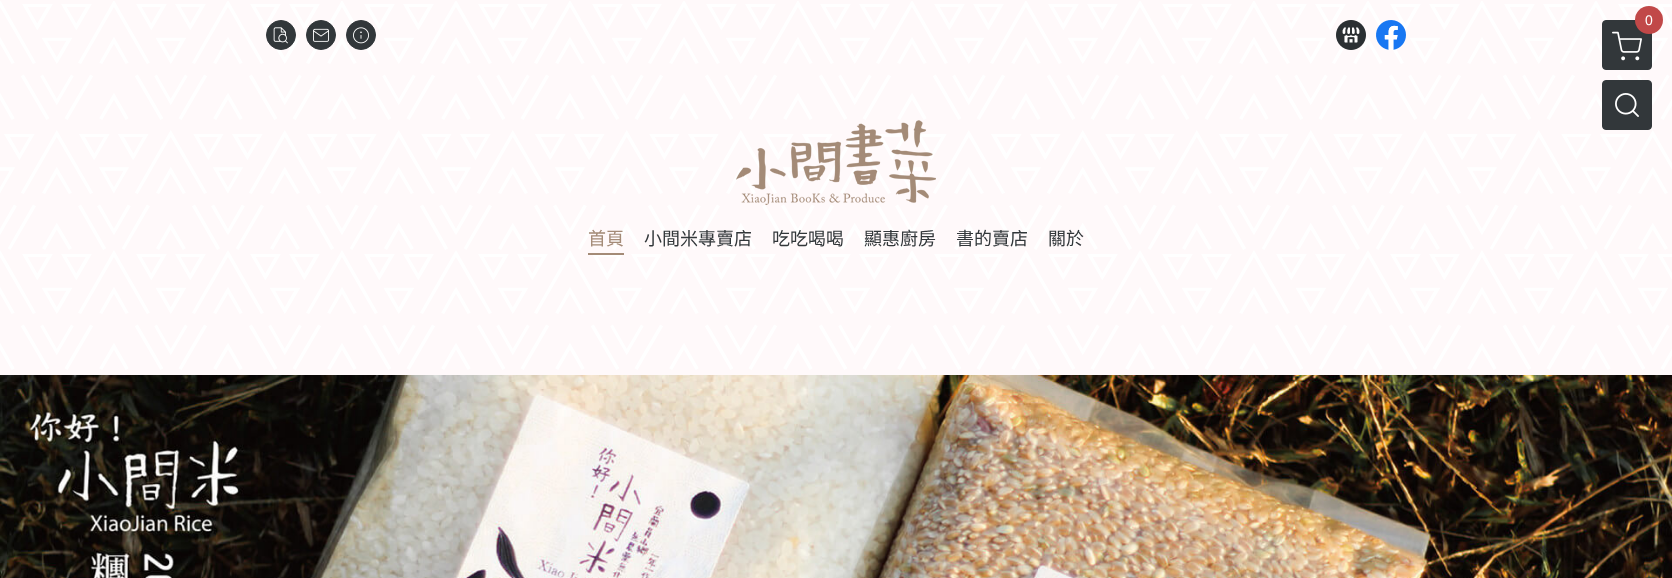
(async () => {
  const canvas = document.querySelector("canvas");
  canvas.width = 1672;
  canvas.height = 578;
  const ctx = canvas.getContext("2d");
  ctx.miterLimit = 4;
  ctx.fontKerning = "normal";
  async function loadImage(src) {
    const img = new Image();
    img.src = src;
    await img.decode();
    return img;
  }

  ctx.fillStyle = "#fff9fa";
  ctx.fillRect(0, 0, 1672, 578);
  ctx.drawImage(await loadImage("img/1.png"), 0, 1, 1672, 369);
  ctx.fillStyle = "#32373a";
  ctx.beginPath();
  ctx.arc(281, 35, 14.5, 0, Math.PI * 2);
  ctx.fill();
  ctx.strokeStyle = "#32373a";
  ctx.stroke();
  ctx.drawImage(await loadImage("img/2.png"), 273, 27, 15, 17);
  ctx.beginPath();
  ctx.arc(321, 35, 14.5, 0, Math.PI * 2);
  ctx.fill();
  ctx.stroke();
  ctx.drawImage(await loadImage("img/3.png"), 313, 28, 16, 14);
  ctx.beginPath();
  ctx.arc(361, 35, 14.5, 0, Math.PI * 2);
  ctx.fill();
  ctx.stroke();
  ctx.drawImage(await loadImage("img/4.png"), 353, 27, 16, 17);
  ctx.drawImage(await loadImage("img/5.png"), 1336, 20, 30, 30);
  ctx.drawImage(await loadImage("img/6.png"), 1376, 20, 30, 30);
  ctx.beginPath();
  ctx.roundRect(1602.5, 20.5, 49, 49, 3.5);
  ctx.fill();
  ctx.stroke();
  ctx.drawImage(await loadImage("img/7.png"), 1612, 31, 30, 30);
  ctx.fillStyle = "#c14848";
  ctx.beginPath();
  ctx.arc(1649, 20, 14, 0, Math.PI * 2);
  ctx.fill();
  ctx.fillStyle = "#32373a";
  ctx.beginPath();
  ctx.roundRect(1602.5, 80.5, 49, 49, 3.5);
  ctx.fill();
  ctx.stroke();
  ctx.drawImage(await loadImage("img/8.png"), 1615, 93, 24, 24);
  ctx.drawImage(await loadImage("img/9.png"), 736, 120, 200, 85);
  ctx.fillStyle = "#a48b77";
  ctx.fillRect(588, 253, 36, 2);
  ctx.drawImage(await loadImage("img/10.png"), 0, 375, 1672, 203);
  ctx.letterSpacing = "1px";
  ctx.font = "14px Liberation Sans";
  ctx.fillStyle = "#ffffff";
  ctx.fillText("0", 1645, 25);
  ctx.letterSpacing = "0px";
  ctx.font = "18px Noto Sans CJK TC";
  ctx.fillStyle = "#a48b77";
  ctx.fillText("首頁", 588, 245);
  ctx.fillStyle = "#32373a";
  for (const [text, x, y] of [
    ["小間米專賣店", 644, 245],
    ["吃吃喝喝", 772, 245],
    ["顯惠廚房", 864, 245],
    ["書的賣店", 956, 245],
    ["關於", 1048, 245],
  ]) {
    ctx.fillText(text, x, y);
  }
})();
